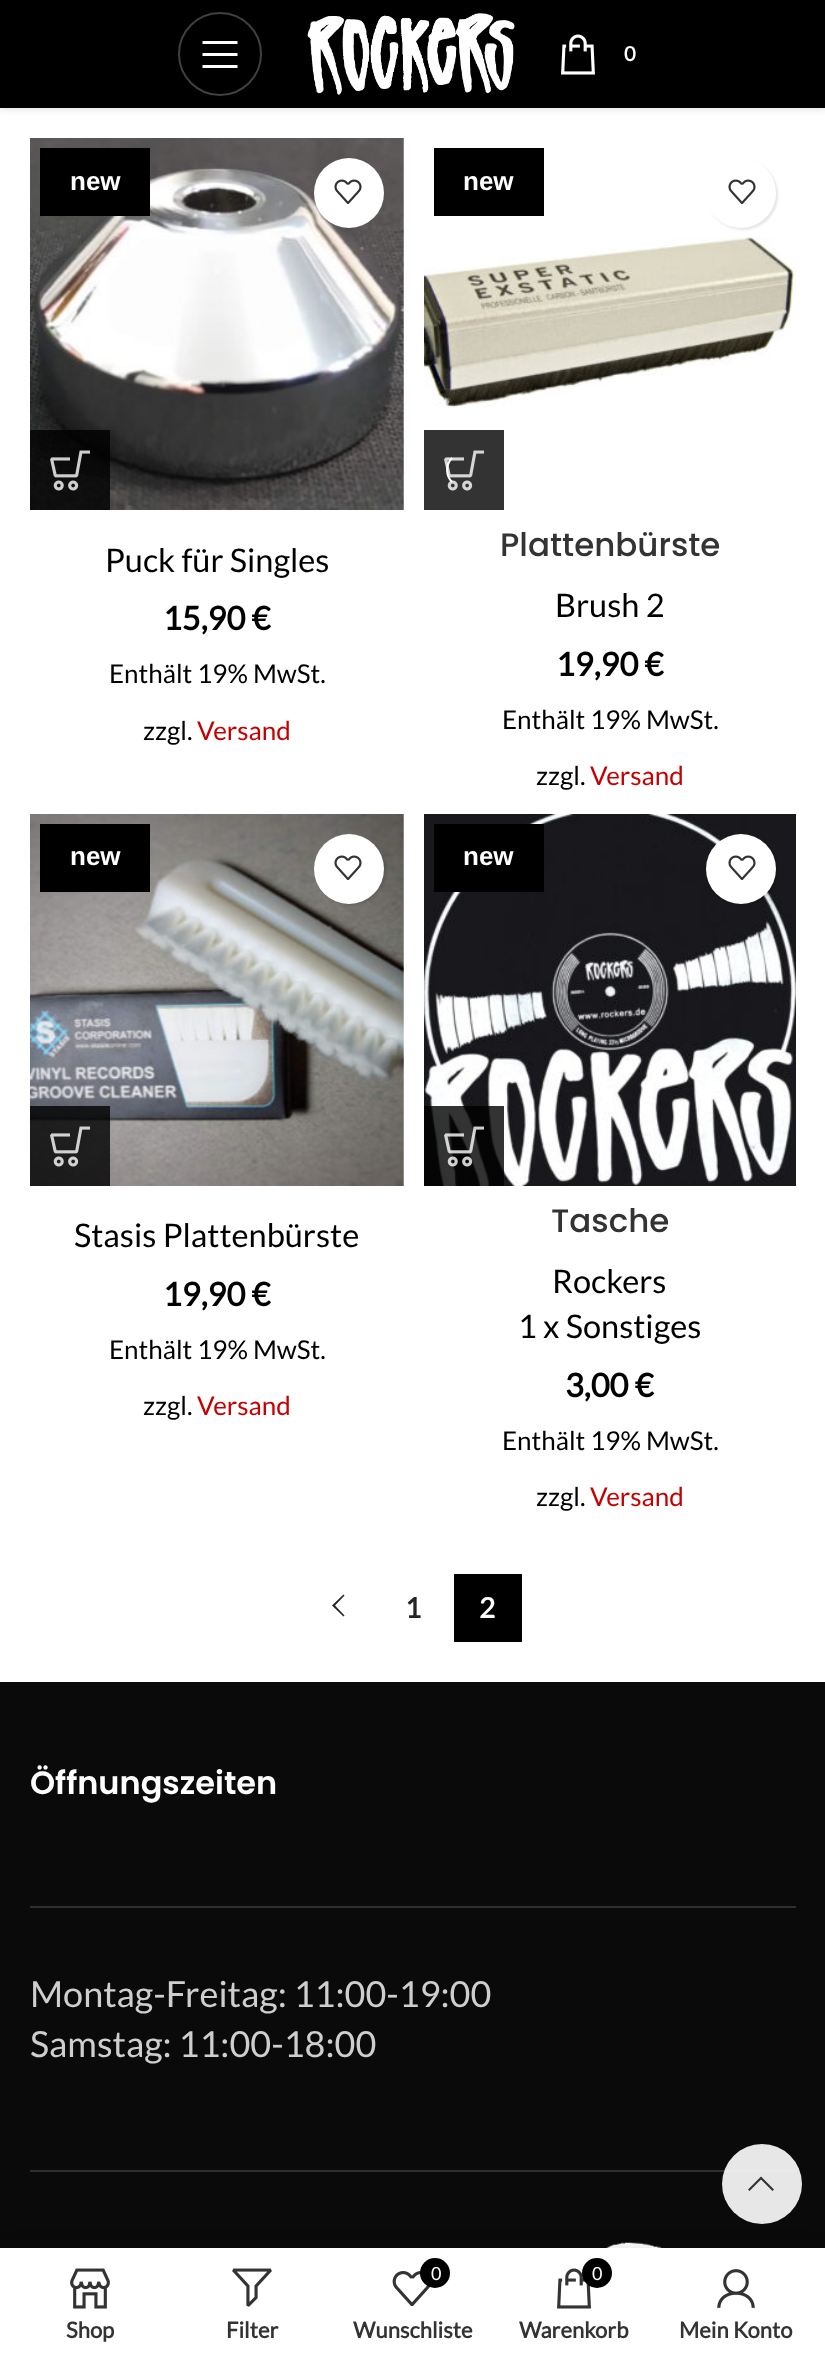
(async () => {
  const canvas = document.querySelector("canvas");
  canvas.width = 825;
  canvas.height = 2358;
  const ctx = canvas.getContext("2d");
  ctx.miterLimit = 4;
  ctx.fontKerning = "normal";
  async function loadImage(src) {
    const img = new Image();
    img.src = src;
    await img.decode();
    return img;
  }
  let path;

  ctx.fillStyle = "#ffffff";
  ctx.fillRect(0, 0, 825, 2358);
  ctx.fillStyle = "rgba(0, 0, 0, 0.1)";
  ctx.filter = "blur(3px)";
  ctx.beginPath();
  ctx.rect(0, 2, 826, 108);
  ctx.fill();
  ctx.filter = "none";
  ctx.fillStyle = "#000000";
  ctx.fillRect(0, 0, 825, 108);
  ctx.beginPath();
  ctx.arc(220, 54, 41, 0, Math.PI * 2);
  ctx.strokeStyle = "#404040";
  ctx.lineWidth = 2;
  ctx.stroke();
  ctx.fillStyle = "#ffffff";
  path = new Path2D("M202.5 44H237.5V41H202.5ZM202.5 56H237.5V53H202.5ZM202.5 68H237.5V65H202.5Z");
  ctx.fill(path);
  ctx.drawImage(await loadImage("img/1.png"), 307, 13, 208, 82);
  ctx.drawImage(await loadImage("img/2.png"), 561, 34, 34, 41);
  ctx.drawImage(await loadImage("img/3.png"), 30, 138, 374, 372);
  ctx.fillStyle = "#000000";
  ctx.fillRect(40, 148, 110, 68);
  ctx.fillStyle = "#ffffff";
  ctx.beginPath();
  ctx.arc(349, 193, 35, 0, Math.PI * 2);
  ctx.fill();
  ctx.drawImage(await loadImage("img/4.png"), 334, 179, 28, 25);
  ctx.fillStyle = "rgba(0, 0, 0, 0.8)";
  ctx.fillRect(30, 430, 80, 80);
  ctx.drawImage(await loadImage("img/5.png"), 50, 450, 40, 41);
  ctx.fillStyle = "#000000";
  ctx.fillRect(434, 148, 110, 68);
  ctx.drawImage(await loadImage("img/6.png"), 424, 237, 372, 171);
  ctx.fillStyle = "rgba(0, 0, 0, 0.1)";
  ctx.filter = "blur(1px)";
  ctx.beginPath();
  ctx.roundRect(708, 160, 70, 70, 35);
  ctx.fill();
  ctx.filter = "none";
  ctx.fillStyle = "#ffffff";
  ctx.beginPath();
  ctx.arc(741, 193, 35, 0, Math.PI * 2);
  ctx.fill();
  ctx.drawImage(await loadImage("img/4.png"), 728, 179, 28, 25);
  ctx.fillStyle = "#333333";
  ctx.fillRect(424, 430, 80, 80);
  ctx.drawImage(await loadImage("img/7.png"), 444, 450, 40, 41);
  path = new Path2D("M452 482C445.5 475.5 445.5 464.5 452 458");
  ctx.strokeStyle = "#ffffff";
  ctx.stroke(path);
  ctx.drawImage(await loadImage("img/8.png"), 30, 814, 374, 372);
  ctx.fillStyle = "#000000";
  ctx.fillRect(40, 824, 110, 68);
  ctx.fillStyle = "rgba(0, 0, 0, 0.1)";
  ctx.filter = "blur(1px)";
  ctx.beginPath();
  ctx.roundRect(316, 836, 70, 70, 35);
  ctx.fill();
  ctx.filter = "none";
  ctx.fillStyle = "#ffffff";
  ctx.beginPath();
  ctx.arc(349, 869, 35, 0, Math.PI * 2);
  ctx.fill();
  ctx.drawImage(await loadImage("img/4.png"), 334, 855, 28, 25);
  ctx.fillStyle = "rgba(0, 0, 0, 0.8)";
  ctx.fillRect(30, 1106, 80, 80);
  ctx.drawImage(await loadImage("img/9.png"), 50, 1126, 40, 41);
  ctx.drawImage(await loadImage("img/10.png"), 424, 814, 372, 372);
  ctx.fillStyle = "#000000";
  ctx.fillRect(434, 824, 110, 68);
  ctx.fillStyle = "rgba(0, 0, 0, 0.1)";
  ctx.filter = "blur(1px)";
  ctx.beginPath();
  ctx.roundRect(708, 836, 70, 70, 35);
  ctx.fill();
  ctx.filter = "none";
  ctx.fillStyle = "#ffffff";
  ctx.beginPath();
  ctx.arc(741, 869, 35, 0, Math.PI * 2);
  ctx.fill();
  ctx.drawImage(await loadImage("img/4.png"), 728, 855, 28, 25);
  ctx.fillStyle = "rgba(0, 0, 0, 0.8)";
  ctx.fillRect(424, 1106, 80, 80);
  ctx.drawImage(await loadImage("img/11.png"), 444, 1126, 40, 41);
  ctx.fillStyle = "#242424";
  path = new Path2D("M344.5 1595.5L343.5 1594.5L332 1605.5L343.5 1616.5L344.5 1615.5L335 1605.5Z");
  ctx.fill(path);
  for (const [x, y, w, h, color] of [
    [454, 1574, 68, 68, "#000000"],
    [0, 1682, 825, 566, "#0a0a0a"],
    [30, 1906, 766, 2, "#2f2f2f"],
    [30, 2170, 766, 2, "#2f2f2f"],
  ]) {
    ctx.fillStyle = color;
    ctx.fillRect(x, y, w, h);
  }
  ctx.drawImage(await loadImage("img/12.png"), 606, 2242, 56, 6);
  ctx.fillStyle = "rgba(255, 255, 255, 0.9)";
  ctx.beginPath();
  ctx.arc(762, 2184, 40, 0, Math.PI * 2);
  ctx.fill();
  ctx.fillStyle = "#333333";
  path = new Path2D("M772.5 2191L774 2189.5L761 2176.5L748 2189.5L749.5 2191L761 2179.5Z");
  ctx.fill(path);
  ctx.fillStyle = "rgba(0, 0, 0, 0.12)";
  ctx.filter = "blur(9px)";
  ctx.beginPath();
  ctx.rect(0, 2248, 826, 110);
  ctx.fill();
  ctx.filter = "none";
  ctx.fillStyle = "#ffffff";
  ctx.fillRect(0, 2248, 825, 110);
  ctx.drawImage(await loadImage("img/13.png"), 70, 2268, 40, 41);
  ctx.drawImage(await loadImage("img/14.png"), 232, 2268, 40, 39);
  ctx.drawImage(await loadImage("img/15.png"), 392, 2271, 38, 35);
  ctx.fillStyle = "#000000";
  ctx.beginPath();
  ctx.arc(435, 2273, 15, 0, Math.PI * 2);
  ctx.fill();
  ctx.drawImage(await loadImage("img/16.png"), 557, 2268, 34, 41);
  ctx.beginPath();
  ctx.arc(597, 2273, 15, 0, Math.PI * 2);
  ctx.fill();
  ctx.drawImage(await loadImage("img/17.png"), 717, 2269, 38, 39);
  ctx.font = "bold 20px Lato";
  ctx.fillStyle = "#ffffff";
  ctx.fillText("0", 624, 61);
  ctx.font = "bold 26px Liberation Sans";
  ctx.fillText("new", 70, 190);
  ctx.font = "32.5px Lato";
  ctx.fillStyle = "#000000";
  ctx.fillText("Puck für Singles", 105, 572);
  ctx.font = "bold 32.5px Lato";
  ctx.fillText("15,90 €", 163, 630);
  ctx.font = "26px Lato";
  ctx.fillText("Enthält 19% MwSt.", 109, 683);
  ctx.fillText("zzgl.", 143, 740);
  ctx.fillStyle = "#c40000";
  ctx.fillText("Versand", 197, 740);
  ctx.font = "bold 26px Liberation Sans";
  ctx.fillStyle = "#ffffff";
  ctx.fillText("new", 463, 190);
  ctx.font = "500 32.5px Poppins";
  ctx.fillStyle = "#333333";
  ctx.fillText("Plattenbürste", 500, 556);
  ctx.font = "32.5px Lato";
  ctx.fillStyle = "#000000";
  ctx.fillText("Brush 2", 555, 617);
  ctx.font = "bold 32.5px Lato";
  ctx.fillText("19,90 €", 556, 676);
  ctx.font = "26px Lato";
  ctx.fillText("Enthält 19% MwSt.", 502, 729);
  ctx.fillText("zzgl.", 536, 785);
  ctx.fillStyle = "#c40000";
  ctx.fillText("Versand", 590, 785);
  ctx.font = "bold 26px Liberation Sans";
  ctx.fillStyle = "#ffffff";
  ctx.fillText("new", 70, 865);
  ctx.font = "32.5px Lato";
  ctx.fillStyle = "#000000";
  ctx.fillText("Stasis Plattenbürste", 74, 1247);
  ctx.font = "bold 32.5px Lato";
  ctx.fillText("19,90 €", 163, 1306);
  ctx.font = "26px Lato";
  ctx.fillText("Enthält 19% MwSt.", 109, 1359);
  ctx.fillText("zzgl.", 143, 1415);
  ctx.fillStyle = "#c40000";
  ctx.fillText("Versand", 197, 1415);
  ctx.font = "bold 26px Liberation Sans";
  ctx.fillStyle = "#ffffff";
  ctx.fillText("new", 463, 865);
  ctx.font = "500 32.5px Poppins";
  ctx.fillStyle = "#333333";
  ctx.fillText("Tasche", 551, 1232);
  ctx.font = "32.5px Lato";
  ctx.fillStyle = "#000000";
  ctx.fillText("Rockers", 552, 1293);
  ctx.fillText("1 x Sonstiges", 518, 1338);
  ctx.font = "bold 32.5px Lato";
  ctx.fillText("3,00 €", 565, 1397);
  ctx.font = "26px Lato";
  ctx.fillText("Enthält 19% MwSt.", 502, 1450);
  ctx.fillText("zzgl.", 536, 1506);
  ctx.fillStyle = "#c40000";
  ctx.fillText("Versand", 590, 1506);
  ctx.font = "bold 28px Lato";
  ctx.fillStyle = "#242424";
  ctx.fillText("1", 405, 1618);
  ctx.fillStyle = "#ffffff";
  ctx.fillText("2", 479, 1618);
  ctx.font = "600 32px Poppins";
  ctx.fillText("Öffnungszeiten", 30, 1794);
  ctx.font = "36px Lato";
  ctx.fillStyle = "#cecece";
  ctx.fillText("Montag-Freitag: 11:00-19:00", 30, 2007);
  ctx.fillText("Samstag: 11:00-18:00", 30, 2057);
  ctx.font = "bold 22px Lato";
  ctx.fillStyle = "#333333";
  ctx.fillText("Shop", 66, 2338);
  ctx.fillText("Filter", 226, 2338);
  ctx.font = "18px Lato";
  ctx.fillStyle = "#ffffff";
  ctx.fillText("0", 431, 2280);
  ctx.font = "bold 22px Lato";
  ctx.fillStyle = "#333333";
  ctx.fillText("Wunschliste", 353, 2338);
  ctx.font = "18px Lato";
  ctx.fillStyle = "#ffffff";
  ctx.fillText("0", 592, 2280);
  ctx.font = "bold 22px Lato";
  ctx.fillStyle = "#333333";
  ctx.fillText("Warenkorb", 519, 2338);
  ctx.fillText("Mein Konto", 679, 2338);
})();
